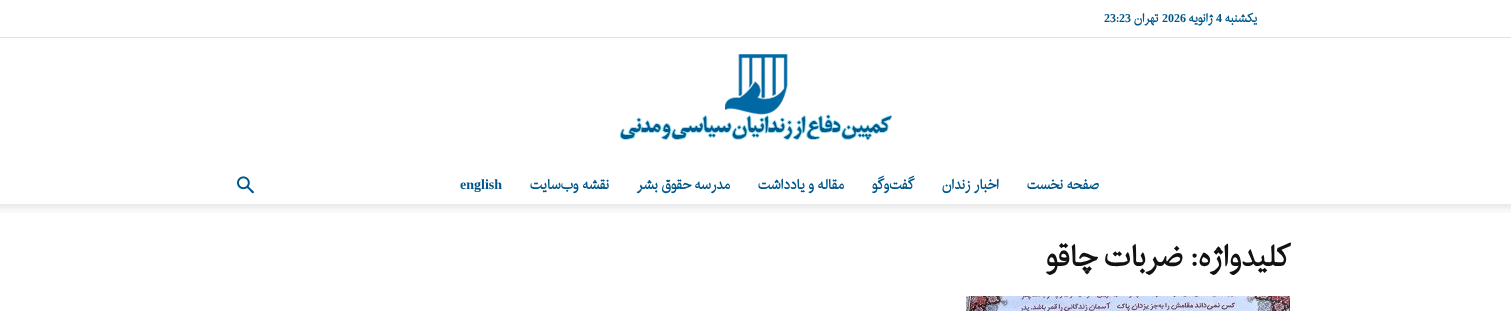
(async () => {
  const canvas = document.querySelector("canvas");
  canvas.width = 1511;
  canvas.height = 311;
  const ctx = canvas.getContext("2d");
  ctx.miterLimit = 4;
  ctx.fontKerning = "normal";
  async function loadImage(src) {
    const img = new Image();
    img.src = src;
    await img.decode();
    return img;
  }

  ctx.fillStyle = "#ffffff";
  ctx.fillRect(0, 0, 1511, 311);
  ctx.fillStyle = "#e0e0e0";
  ctx.fillRect(0, 37, 1511, 1);
  ctx.drawImage(await loadImage("img/1.png"), 620, 54, 272, 87);
  ctx.drawImage(await loadImage("img/2.png"), 237, 176, 17, 18);
  ctx.drawImage(await loadImage("img/3.png"), 0, 204, 1511, 9);
  ctx.drawImage(await loadImage("img/4.png"), 966, 296, 324, 15);
  ctx.direction = "rtl";
  ctx.font = "bold 12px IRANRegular";
  ctx.fillStyle = "#005689";
  ctx.fillText("یکشنبه", 1257, 22);
  ctx.direction = "ltr";
  ctx.font = "bold 12px Liberation Serif";
  ctx.fillText("4", 1216, 22);
  ctx.direction = "rtl";
  ctx.font = "bold 12px IRANRegular";
  ctx.fillText("ژانویه", 1213, 22);
  ctx.direction = "ltr";
  ctx.font = "bold 12px Liberation Serif";
  ctx.fillText("2026", 1162, 22);
  ctx.direction = "rtl";
  ctx.font = "bold 12px IRANRegular";
  ctx.fillText("تهران", 1158, 22);
  ctx.direction = "ltr";
  ctx.font = "bold 12px Liberation Serif";
  ctx.fillText("23 23", 1104, 22);
  ctx.font = "bold 12px IRANRegular";
  ctx.fillText(":", 1116, 22);
  ctx.direction = "rtl";
  ctx.font = "bold 14px IRANRegular";
  for (const [text, x, y] of [
    ["صفحه نخست", 1099, 189],
    ["اخبار زندان", 999, 189],
    ["گفت‌وگو", 914, 189],
    ["مقاله و یادداشت", 844, 189],
    ["مدرسه حقوق بشر", 730, 189],
    ["نقشه وب‌سایت", 609, 189],
  ]) {
    ctx.fillText(text, x, y);
  }
  ctx.direction = "ltr";
  ctx.font = "bold 14px Liberation Serif";
  ctx.fillText("english", 460, 189);
  ctx.direction = "rtl";
  ctx.font = "bold 30px IRANRegular";
  ctx.fillStyle = "#111111";
  ctx.fillText("کلیدواژه: ضربات چاقو", 1289, 266);
})();
